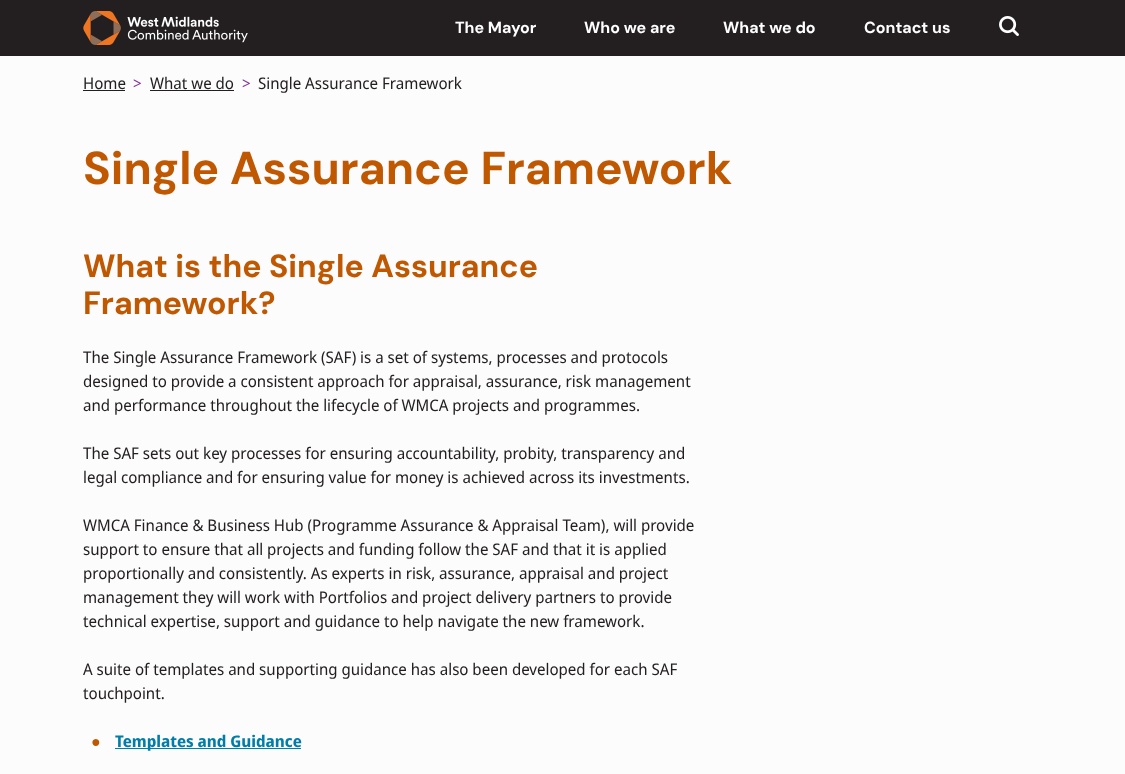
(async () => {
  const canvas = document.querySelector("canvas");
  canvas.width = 1125;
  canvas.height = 774;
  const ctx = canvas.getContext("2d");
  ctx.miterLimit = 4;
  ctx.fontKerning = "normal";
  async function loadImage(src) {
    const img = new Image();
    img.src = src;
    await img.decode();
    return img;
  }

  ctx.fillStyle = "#fcfcfc";
  ctx.fillRect(0, 0, 1125, 774);
  ctx.fillStyle = "#231f20";
  ctx.fillRect(0, 0, 1125, 56);
  ctx.drawImage(await loadImage("img/1.png"), 83, 11, 165, 34);
  ctx.drawImage(await loadImage("img/2.png"), 999, 16, 20, 20);
  for (const [x, y, w, h, color] of [
    [83, 90, 42, 1, "#231f20"],
    [150, 90, 84, 1, "#231f20"],
    [115, 748, 186, 1, "#007da8"],
  ]) {
    ctx.fillStyle = color;
    ctx.fillRect(x, y, w, h);
  }
  ctx.font = "bold 16px DM Sans";
  ctx.fillStyle = "#ffffff";
  for (const [text, x, y] of [
    ["The Mayor", 455, 33],
    ["Who we are", 584, 33],
    ["What we do", 723, 33],
    ["Contact us", 864, 33],
  ]) {
    ctx.fillText(text, x, y);
  }
  ctx.font = "16px Noto Sans Display";
  ctx.fillStyle = "#231f20";
  ctx.fillText("Home", 83, 89);
  ctx.fillStyle = "#84329b";
  ctx.fillText(">", 133, 89);
  ctx.fillStyle = "#231f20";
  ctx.fillText("What we do", 150, 89);
  ctx.fillStyle = "#84329b";
  ctx.fillText(">", 242, 89);
  ctx.fillStyle = "#231f20";
  ctx.fillText("Single Assurance Framework", 258, 89);
  ctx.font = "bold 46px DM Sans";
  ctx.fillStyle = "#c05701";
  ctx.fillText("Single Assurance Framework", 83, 184);
  ctx.font = "bold 32px DM Sans";
  ctx.fillText("What is the Single Assurance", 83, 277);
  ctx.fillText("Framework?", 83, 314);
  ctx.font = "16px Noto Sans Display";
  ctx.fillStyle = "#231f20";
  for (const [text, x, y] of [
    ["The Single Assurance Framework (SAF) is a set of systems, processes and protocols", 83, 363],
    ["designed to provide a consistent approach for appraisal, assurance, risk management", 83, 387],
    ["and performance throughout the lifecycle of WMCA projects and programmes.", 83, 411],
    ["The SAF sets out key processes for ensuring accountability, probity, transparency and", 83, 459],
    ["legal compliance and for ensuring value for money is achieved across its investments.", 83, 483],
    ["WMCA Finance & Business Hub (Programme Assurance & Appraisal Team), will provide", 83, 531],
    ["support to ensure that all projects and funding follow the SAF and that it is applied", 83, 555],
    ["proportionally and consistently. As experts in risk, assurance, appraisal and project", 83, 579],
    ["management they will work with Portfolios and project delivery partners to provide", 83, 603],
    ["technical expertise, support and guidance to help navigate the new framework.", 83, 627],
    ["A suite of templates and supporting guidance has also been developed for each SAF", 83, 675],
    ["touchpoint.", 83, 699],
  ]) {
    ctx.fillText(text, x, y);
  }
  ctx.font = "16px Liberation Sans";
  ctx.fillStyle = "#c05701";
  ctx.fillText("●", 91, 747);
  ctx.font = "bold 16px Noto Sans Display";
  ctx.fillStyle = "#007da8";
  ctx.fillText("Templates and Guidance", 115, 747);
})();
